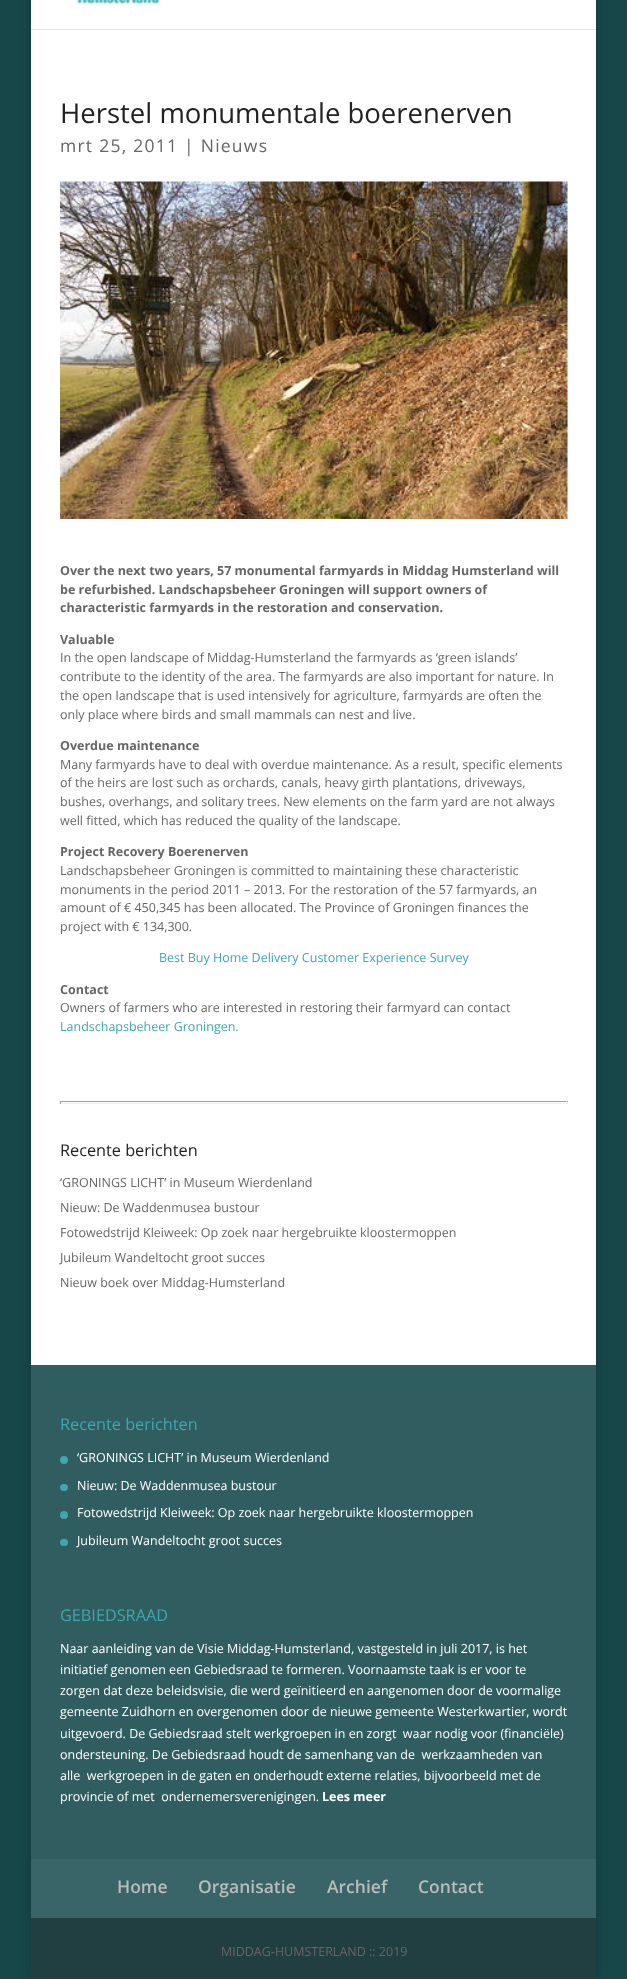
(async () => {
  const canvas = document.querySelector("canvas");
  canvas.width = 627;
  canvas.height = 1979;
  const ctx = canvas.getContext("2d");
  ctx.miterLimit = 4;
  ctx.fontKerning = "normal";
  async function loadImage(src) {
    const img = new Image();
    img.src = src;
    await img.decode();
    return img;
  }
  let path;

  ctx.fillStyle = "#18474a";
  ctx.fillRect(0, 0, 627, 1979);
  ctx.fillStyle = "rgba(0, 0, 0, 0.2)";
  ctx.filter = "blur(6px)";
  ctx.beginPath();
  ctx.rect(31, -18, 565, 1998);
  ctx.fill();
  ctx.filter = "none";
  ctx.fillStyle = "#e6e6e6";
  path = new Path2D("M31-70V30H596V29H31Z");
  ctx.fill(path);
  ctx.fillStyle = "#ffffff";
  ctx.fillRect(31, 0, 565, 29);
  ctx.drawImage(await loadImage("img/1.png"), 77, 0, 83, 5);
  ctx.fillRect(31, 30, 565, 1335);
  ctx.drawImage(await loadImage("img/2.png"), 60, 181, 508, 338);
  for (const [x, y, w, h, color] of [
    [60, 1101, 508, 1, "#9f9f9f"],
    [566, 1101, 1, 3, "#eeeeee"],
    [60, 1103, 508, 1, "#eeeeee"],
    [60, 1101, 1, 3, "#9f9f9f"],
    [31, 1365, 565, 494, "#305d60"],
  ]) {
    ctx.fillStyle = color;
    ctx.fillRect(x, y, w, h);
  }
  ctx.fillStyle = "#3fa7ae";
  ctx.beginPath();
  ctx.arc(64, 1460, 4, 0, Math.PI * 2);
  ctx.fill();
  ctx.beginPath();
  ctx.roundRect(60, 1484, 8, 7, 3.5);
  ctx.fill();
  ctx.beginPath();
  ctx.arc(64, 1515, 4, 0, Math.PI * 2);
  ctx.fill();
  ctx.beginPath();
  ctx.roundRect(60, 1539, 8, 7, 3.5);
  ctx.fill();
  ctx.fillStyle = "#3a6568";
  ctx.fillRect(31, 1859, 565, 59);
  ctx.fillStyle = "#213f41";
  ctx.fillRect(31, 1918, 565, 61);
  ctx.font = "27.5px Open Sans";
  ctx.fillStyle = "#222222";
  ctx.fillText("Herstel monumentale boerenerven", 60, 123);
  ctx.letterSpacing = "1.25px";
  ctx.font = "17.5px Open Sans";
  ctx.fillStyle = "#666666";
  ctx.fillText("mrt 25, 2011 | Nieuws", 60, 152);
  ctx.letterSpacing = "0px";
  ctx.font = "bold 12.5px Open Sans";
  for (const [text, x, y] of [
    ["Over the next two years, 57 monumental farmyards in Middag Humsterland will", 60, 575],
    ["be refurbished. Landschapsbeheer Groningen will support owners of", 60, 594],
    ["characteristic farmyards in the restoration and conservation.", 60, 612],
    ["Valuable", 60, 644],
  ]) {
    ctx.fillText(text, x, y);
  }
  ctx.font = "12.5px Open Sans";
  for (const [text, x, y] of [
    ["In the open landscape of Middag-Humsterland the farmyards as ‘green islands’", 60, 662],
    ["contribute to the identity of the area. The farmyards are also important for nature. In", 60, 681],
    ["the open landscape that is used intensively for agriculture, farmyards are often the", 60, 700],
    ["only place where birds and small mammals can nest and live.", 60, 719],
  ]) {
    ctx.fillText(text, x, y);
  }
  ctx.font = "bold 12.5px Open Sans";
  ctx.fillText("Overdue maintenance", 60, 750);
  ctx.font = "12.5px Open Sans";
  for (const [text, x, y] of [
    ["Many farmyards have to deal with overdue maintenance. As a result, specific elements", 60, 769],
    ["of the heirs are lost such as orchards, canals, heavy girth plantations, driveways,", 60, 787],
    ["bushes, overhangs, and solitary trees. New elements on the farm yard are not always", 60, 806],
    ["well fitted, which has reduced the quality of the landscape.", 60, 825],
  ]) {
    ctx.fillText(text, x, y);
  }
  ctx.font = "bold 12.5px Open Sans";
  ctx.fillText("Project Recovery Boerenerven", 60, 856);
  ctx.font = "12.5px Open Sans";
  for (const [text, x, y] of [
    ["Landschapsbeheer Groningen is committed to maintaining these characteristic", 60, 875],
    ["monuments in the period 2011 – 2013. For the restoration of the 57 farmyards, an", 60, 894],
    ["amount of € 450,345 has been allocated. The Province of Groningen finances the", 60, 912],
    ["project with € 134,300.", 60, 931],
  ]) {
    ctx.fillText(text, x, y);
  }
  ctx.fillStyle = "#3fa7ae";
  ctx.fillText("Best Buy Home Delivery Customer Experience Survey", 159, 962);
  ctx.font = "bold 12.5px Open Sans";
  ctx.fillStyle = "#666666";
  ctx.fillText("Contact", 60, 994);
  ctx.font = "12.5px Open Sans";
  ctx.fillText("Owners of farmers who are interested in restoring their farmyard can contact", 60, 1012);
  ctx.fillStyle = "#3fa7ae";
  ctx.fillText("Landschapsbeheer Groningen.", 60, 1031);
  ctx.font = "16.25px Open Sans";
  ctx.fillStyle = "#222222";
  ctx.fillText("Recente berichten", 60, 1156);
  ctx.font = "12.5px Open Sans";
  ctx.fillStyle = "#666666";
  for (const [text, x, y] of [
    ["‘GRONINGS LICHT’ in Museum Wierdenland", 60, 1187],
    ["Nieuw: De Waddenmusea bustour", 60, 1212],
    ["Fotowedstrijd Kleiweek: Op zoek naar hergebruikte kloostermoppen", 60, 1237],
    ["Jubileum Wandeltocht groot succes", 60, 1262],
    ["Nieuw boek over Middag-Humsterland", 60, 1287],
  ]) {
    ctx.fillText(text, x, y);
  }
  ctx.font = "16.25px Open Sans";
  ctx.fillStyle = "#3fa7ae";
  ctx.fillText("Recente berichten", 60, 1430);
  ctx.font = "12.5px Open Sans";
  ctx.fillStyle = "#ffffff";
  for (const [text, x, y] of [
    ["‘GRONINGS LICHT’ in Museum Wierdenland", 77, 1462],
    ["Nieuw: De Waddenmusea bustour", 77, 1490],
    ["Fotowedstrijd Kleiweek: Op zoek naar hergebruikte kloostermoppen", 77, 1517],
    ["Jubileum Wandeltocht groot succes", 77, 1545],
  ]) {
    ctx.fillText(text, x, y);
  }
  ctx.font = "16.25px Open Sans";
  ctx.fillStyle = "#3fa7ae";
  ctx.fillText("GEBIEDSRAAD", 60, 1621);
  ctx.font = "12.5px Open Sans";
  ctx.fillStyle = "#ffffff";
  for (const [text, x, y] of [
    ["Naar aanleiding van de Visie Middag-Humsterland, vastgesteld in juli 2017, is het", 60, 1653],
    ["initiatief genomen een Gebiedsraad te formeren. Voornaamste taak is er voor te", 60, 1674],
    ["zorgen dat deze beleidsvisie, die werd geïnitieerd en aangenomen door de voormalige", 60, 1695],
    ["gemeente Zuidhorn en overgenomen door de nieuwe gemeente Westerkwartier, wordt", 60, 1716],
    ["uitgevoerd. De Gebiedsraad stelt werkgroepen in en zorgt  waar nodig voor (financiële)", 60, 1738],
    ["ondersteuning. De Gebiedsraad houdt de samenhang van de  werkzaamheden van", 60, 1759],
    ["alle  werkgroepen in de gaten en onderhoudt externe relaties, bijvoorbeeld met de", 60, 1780],
    ["provincie of met  ondernemersverenigingen.", 60, 1801],
  ]) {
    ctx.fillText(text, x, y);
  }
  ctx.font = "bold 12.5px Open Sans";
  ctx.fillText("Lees meer", 322, 1801);
  ctx.font = "600 17.5px Open Sans";
  ctx.fillStyle = "#bbbbbb";
  for (const [text, x, y] of [
    ["Home", 117, 1893],
    ["Organisatie", 198, 1893],
    ["Archief", 327, 1893],
    ["Contact", 418, 1893],
  ]) {
    ctx.fillText(text, x, y);
  }
  ctx.font = "12.5px Open Sans";
  ctx.fillStyle = "#666666";
  ctx.fillText("MIDDAG-HUMSTERLAND :: 2019", 221, 1956);
})();
